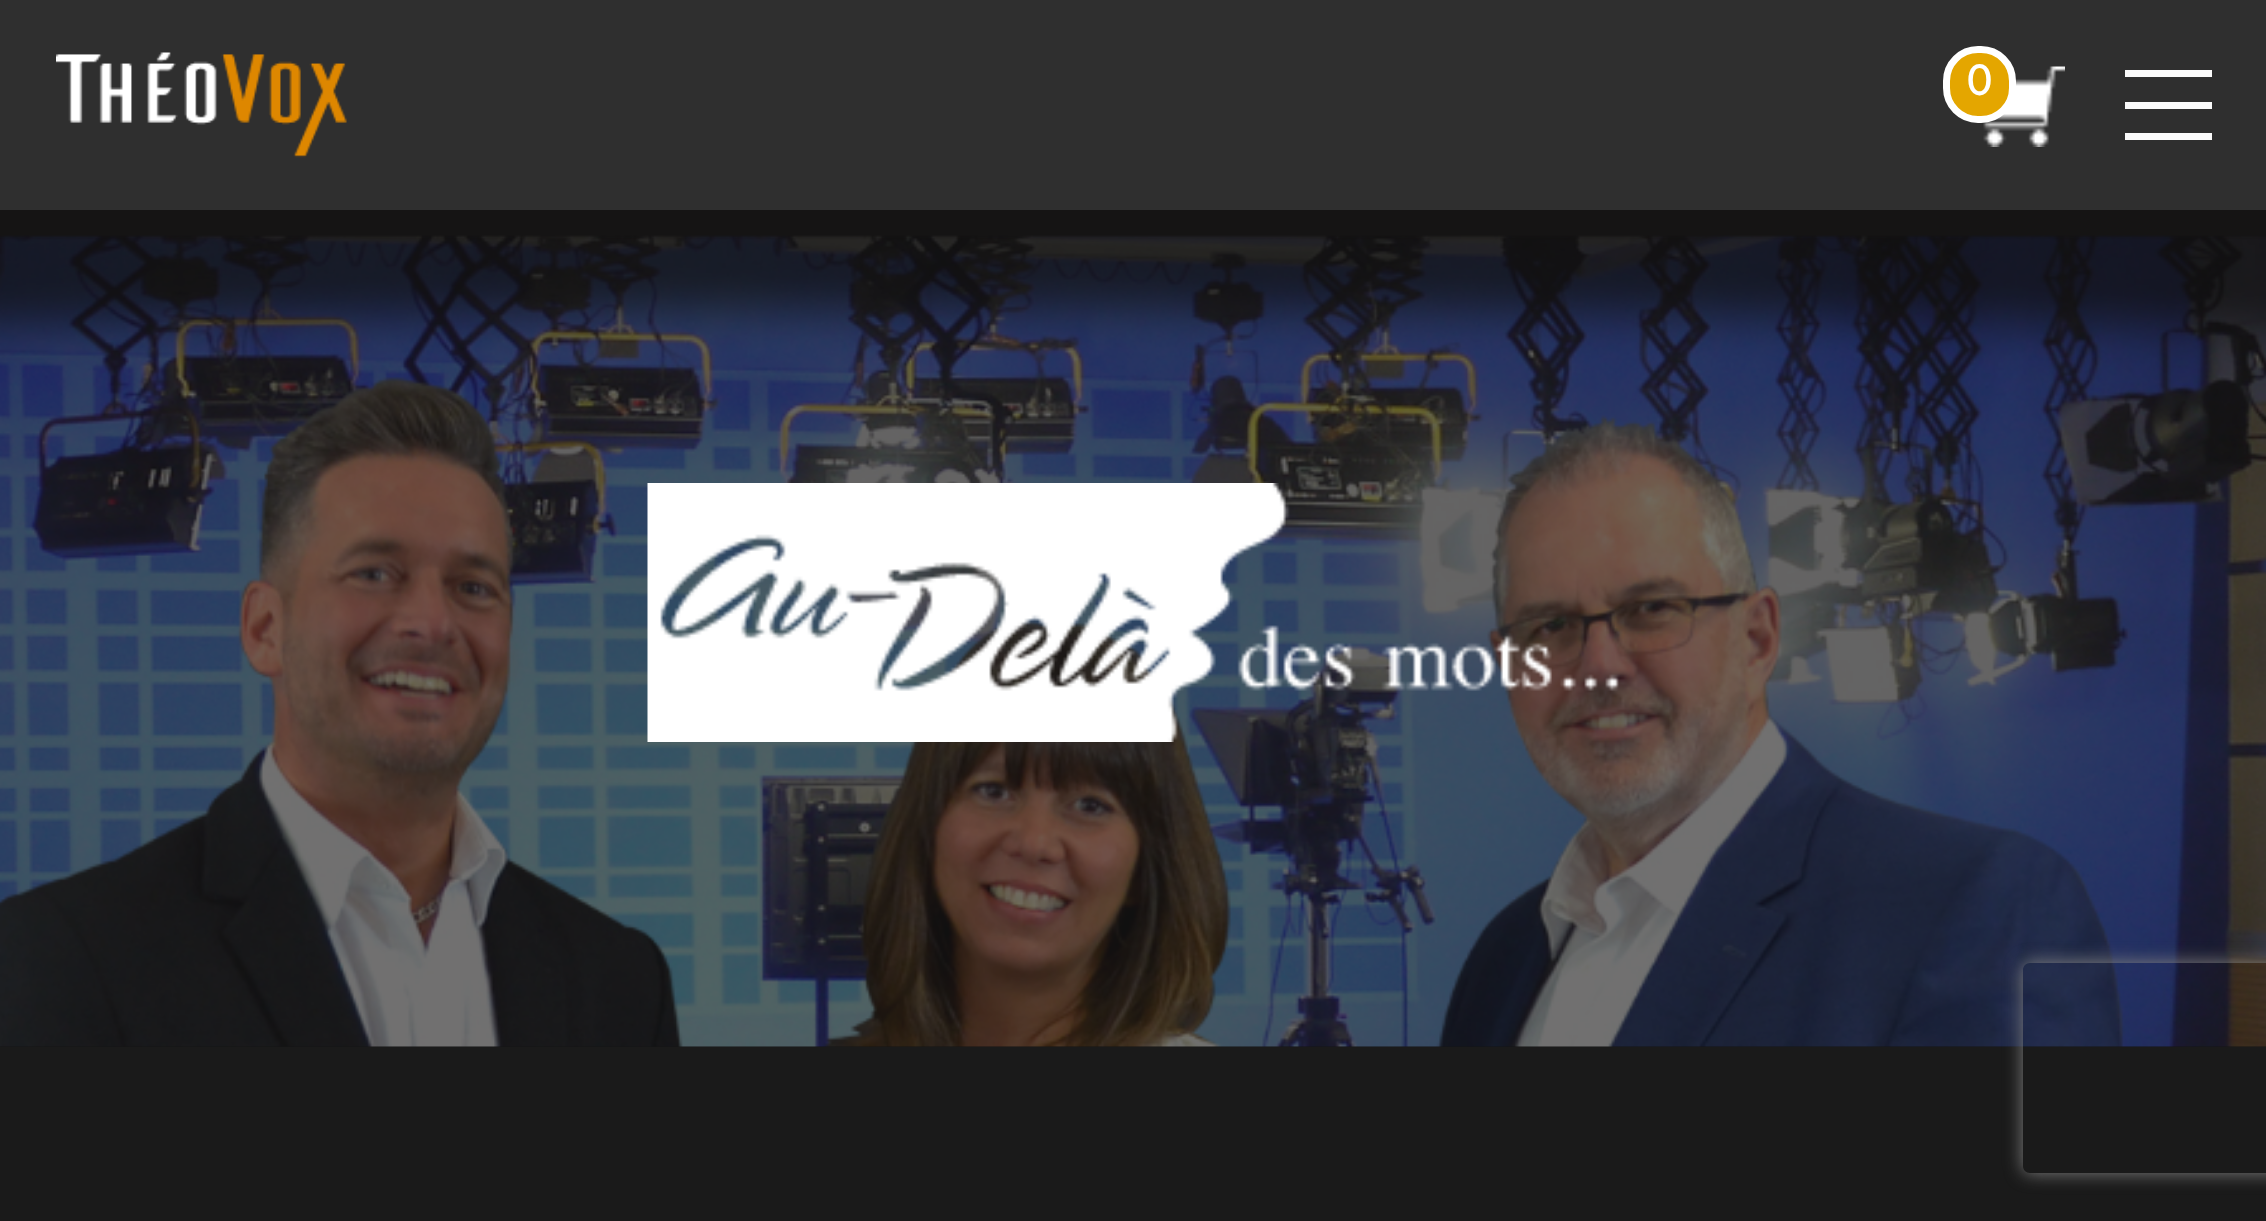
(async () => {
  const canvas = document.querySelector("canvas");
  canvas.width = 2266;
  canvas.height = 1221;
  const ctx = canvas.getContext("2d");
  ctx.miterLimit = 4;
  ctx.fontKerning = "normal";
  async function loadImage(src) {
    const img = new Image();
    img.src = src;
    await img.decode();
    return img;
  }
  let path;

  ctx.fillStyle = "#1a1a1a";
  ctx.fillRect(0, 0, 2266, 1221);
  ctx.fillStyle = "#2f2f2f";
  ctx.fillRect(0, 0, 2266, 210);
  ctx.drawImage(await loadImage("img/1.png"), 56, 52, 291, 106);
  ctx.drawImage(await loadImage("img/2.png"), 1983, 66, 82, 81);
  ctx.fillStyle = "#e4a600";
  ctx.beginPath();
  ctx.roundRect(1946.5, 49.5, 66, 70, 31.5);
  ctx.fill();
  ctx.strokeStyle = "#ffffff";
  ctx.lineWidth = 7;
  ctx.stroke();
  for (const [x, y, w, h, color] of [
    [2125, 70, 87, 7, "#fbfbfb"],
    [2125, 102, 87, 7, "#fbfbfb"],
    [2125, 133, 87, 7, "#fbfbfb"],
    [0, 210, 2266, 837, "#151414"],
  ]) {
    ctx.fillStyle = color;
    ctx.fillRect(x, y, w, h);
  }
  ctx.drawImage(await loadImage("img/3.png"), 0, 235, 2266, 812);
  ctx.drawImage(await loadImage("img/4.png"), 647, 483, 972, 259);
  ctx.save();
  path = new Path2D("M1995 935H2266V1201H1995ZM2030 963H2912C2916 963 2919 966 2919 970V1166C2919 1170 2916 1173 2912 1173H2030C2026 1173 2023 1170 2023 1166V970C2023 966 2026 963 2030 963Z");
  ctx.clip(path, "evenodd");
  ctx.fillStyle = "#808080";
  ctx.filter = "blur(9px)";
  ctx.beginPath();
  ctx.roundRect(2023, 963, 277, 210, 7);
  ctx.fill();
  ctx.filter = "none";
  ctx.restore();
  ctx.font = "bold 42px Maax";
  ctx.fillStyle = "#ffffff";
  ctx.fillText("0", 1966, 95);
})();
